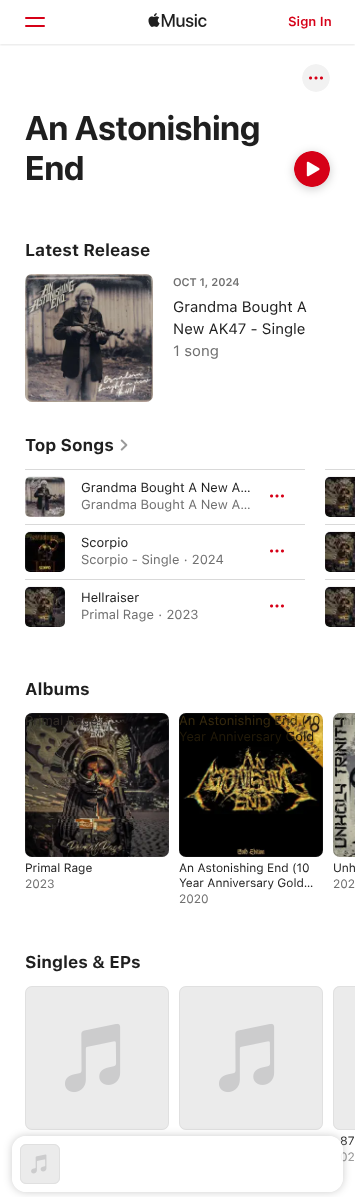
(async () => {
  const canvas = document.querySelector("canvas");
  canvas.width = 355;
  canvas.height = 1197;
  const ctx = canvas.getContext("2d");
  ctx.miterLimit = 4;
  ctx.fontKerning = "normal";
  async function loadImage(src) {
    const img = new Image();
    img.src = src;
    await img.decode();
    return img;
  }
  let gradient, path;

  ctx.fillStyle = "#ffffff";
  ctx.fillRect(0, 0, 355, 1197);
  ctx.save();
  ctx.beginPath();
  ctx.rect(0, 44, 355, 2);
  ctx.clip();
  ctx.fillStyle = "rgba(0, 0, 0, 0.1)";
  ctx.filter = "blur(1px)";
  ctx.beginPath();
  ctx.rect(0, 1, 355, 44);
  ctx.fill();
  ctx.filter = "none";
  ctx.restore();
  ctx.fillStyle = "#d60017";
  ctx.beginPath();
  ctx.roundRect(25, 17, 20, 2, 1);
  ctx.fill();
  ctx.beginPath();
  ctx.roundRect(25, 25, 20, 2, 1);
  ctx.fill();
  ctx.drawImage(await loadImage("img/1.png"), 148, 13, 59, 14);
  ctx.drawImage(await loadImage("img/2.png"), 302, 64, 28, 28);
  ctx.fillStyle = "rgba(0, 0, 0, 0.2)";
  ctx.filter = "blur(5px)";
  ctx.beginPath();
  ctx.roundRect(294, 153, 36, 36, 18);
  ctx.fill();
  ctx.filter = "none";
  ctx.drawImage(await loadImage("img/3.png"), 294, 151, 36, 36);
  ctx.drawImage(await loadImage("img/4.png"), 25, 274, 128, 128);
  ctx.beginPath();
  ctx.roundRect(25.5, 274.5, 127, 127, 6.5);
  ctx.strokeStyle = "rgba(128, 128, 128, 0.1)";
  ctx.stroke();
  ctx.drawImage(await loadImage("img/5.png"), 120, 439, 8, 12);
  ctx.fillStyle = "#d9d9d9";
  ctx.fillRect(25, 469, 280, 1);
  ctx.drawImage(await loadImage("img/6.png"), 25, 477, 40, 40);
  ctx.beginPath();
  ctx.roundRect(25.5, 476.5, 39, 39, 4.5);
  ctx.stroke();
  ctx.drawImage(await loadImage("img/7.png"), 270, 494, 14, 4);
  ctx.fillRect(325, 469, 30, 1);
  ctx.drawImage(await loadImage("img/8.png"), 325, 477, 30, 40);
  ctx.beginPath();
  ctx.roundRect(325.5, 476.5, 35, 39, 4.5);
  ctx.stroke();
  ctx.fillRect(25, 524, 280, 1);
  ctx.drawImage(await loadImage("img/9.png"), 25, 532, 40, 40);
  ctx.beginPath();
  ctx.roundRect(25.5, 531.5, 39, 39, 4.5);
  ctx.stroke();
  ctx.drawImage(await loadImage("img/7.png"), 270, 549, 14, 4);
  ctx.fillRect(325, 524, 30, 1);
  ctx.drawImage(await loadImage("img/8.png"), 325, 532, 30, 40);
  ctx.beginPath();
  ctx.roundRect(325.5, 531.5, 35, 39, 4.5);
  ctx.stroke();
  ctx.fillRect(25, 579, 280, 1);
  ctx.drawImage(await loadImage("img/10.png"), 25, 587, 40, 40);
  ctx.beginPath();
  ctx.roundRect(25.5, 586.5, 39, 39, 4.5);
  ctx.stroke();
  ctx.drawImage(await loadImage("img/7.png"), 270, 604, 14, 4);
  ctx.fillRect(325, 579, 30, 1);
  ctx.drawImage(await loadImage("img/8.png"), 325, 587, 30, 40);
  ctx.beginPath();
  ctx.roundRect(325.5, 586.5, 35, 39, 4.5);
  ctx.stroke();
  ctx.drawImage(await loadImage("img/11.png"), 25, 713, 144, 144);
  ctx.beginPath();
  ctx.roundRect(25.5, 713.5, 143, 143, 6.5);
  ctx.stroke();
  ctx.drawImage(await loadImage("img/12.png"), 179, 713, 144, 144);
  ctx.beginPath();
  ctx.roundRect(179.5, 713.5, 143, 143, 6.5);
  ctx.stroke();
  ctx.drawImage(await loadImage("img/13.png"), 333, 713, 22, 144);
  ctx.beginPath();
  ctx.roundRect(333.5, 713.5, 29, 143, 6.5);
  ctx.stroke();
  ctx.drawImage(await loadImage("img/14.png"), 25, 986, 144, 144);
  ctx.beginPath();
  ctx.roundRect(25.5, 986.5, 143, 143, 6.5);
  ctx.stroke();
  ctx.drawImage(await loadImage("img/15.png"), 179, 986, 144, 144);
  ctx.beginPath();
  ctx.roundRect(179.5, 986.5, 143, 143, 6.5);
  ctx.stroke();
  ctx.fillStyle = "#ebebeb";
  ctx.beginPath();
  ctx.roundRect(333, 986, 22, 144, [7, 0, 0, 7]);
  ctx.fill();
  ctx.drawImage(await loadImage("img/16.png"), 333, 986, 7, 144);
  ctx.beginPath();
  ctx.roundRect(333.5, 986.5, 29, 143, 6.5);
  ctx.stroke();
  ctx.font = "600 13px SF";
  ctx.fillStyle = "#d60017";
  ctx.fillText("Sign In", 288, 26);
  ctx.font = "bold 34px 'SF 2'";
  ctx.fillStyle = "#1f1f1f";
  ctx.fillText("An Astonishing", 25, 140);
  ctx.fillText("End", 25, 180);
  ctx.font = "bold 17px SF";
  ctx.fillText("Latest Release", 25, 256);
  ctx.font = "600 11px SF";
  ctx.fillStyle = "#707070";
  ctx.fillText("OCT 1, 2024", 173, 286);
  ctx.font = "15px SF";
  ctx.fillStyle = "#1f1f1f";
  ctx.fillText("Grandma Bought A", 173, 312);
  ctx.fillText("New AK47 - Single", 173, 334);
  ctx.fillStyle = "#707070";
  ctx.fillText("1 song", 173, 356);
  ctx.font = "bold 17px SF";
  ctx.fillStyle = "#1f1f1f";
  ctx.fillText("Top Songs", 25, 451);
  ctx.font = "13px SF";
  ctx.fillText("Grandma Bought A New A…", 81, 492);
  ctx.fillStyle = "#707070";
  ctx.fillText("Grandma Bought A New A…", 81, 509);
  ctx.fillStyle = "#1f1f1f";
  ctx.fillText("Scorpio", 81, 547);
  ctx.fillStyle = "#707070";
  ctx.fillText("Scorpio - Single · 2024", 81, 564);
  ctx.fillStyle = "#1f1f1f";
  ctx.fillText("Hellraiser", 81, 602);
  ctx.fillStyle = "#707070";
  ctx.fillText("Primal Rage · 2023", 81, 619);
  ctx.font = "bold 17px SF";
  ctx.fillStyle = "#1f1f1f";
  ctx.fillText("Albums", 25, 695);
  ctx.font = "13px SF";
  ctx.fillStyle = "#302b27";
  ctx.fillText("Primal Rage", 25, 725);
  ctx.font = "12px SF";
  ctx.fillStyle = "#1f1f1f";
  ctx.fillText("Primal Rage", 25, 872);
  ctx.fillStyle = "#707070";
  ctx.fillText("2023", 25, 888);
  ctx.font = "13px SF";
  ctx.fillStyle = "#372a0e";
  ctx.fillText("An Astonishing End (10", 179, 725);
  ctx.fillStyle = "#221a09";
  ctx.fillText("Year Anniversary Gold", 179, 741);
  ctx.font = "12px SF";
  ctx.fillStyle = "#1f1f1f";
  ctx.fillText("An Astonishing End (10", 179, 872);
  ctx.fillText("Year Anniversary Gold…", 179, 887);
  ctx.fillStyle = "#707070";
  ctx.fillText("2020", 179, 903);
  ctx.font = "13px SF";
  ctx.fillStyle = "#79796c";
  ctx.fillText("nh", 343, 725);
  ctx.font = "12px SF";
  ctx.fillStyle = "#1f1f1f";
  ctx.fillText("Unh", 333, 872);
  ctx.fillStyle = "#707070";
  ctx.fillText("202", 333, 888);
  ctx.font = "bold 17px SF";
  ctx.fillStyle = "#1f1f1f";
  ctx.fillText("Singles & EPs", 25, 968);
  ctx.font = "12px SF";
  ctx.fillText("87", 340, 1145);
  ctx.fillStyle = "#707070";
  ctx.fillText("02", 340, 1161);
  gradient = ctx.createLinearGradient(178, 1197, 178, 1136);
  gradient.addColorStop(0, "rgba(255, 255, 255, 0.8)");
  gradient.addColorStop(1, "rgba(255, 255, 255, 0)");
  ctx.fillStyle = gradient;
  ctx.fillRect(340, 1138, 15, 24);
  ctx.save();
  path = new Path2D("M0 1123H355V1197H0ZM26 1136H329C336.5 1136 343 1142.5 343 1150V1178C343 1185.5 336.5 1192 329 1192H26C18.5 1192 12 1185.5 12 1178V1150C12 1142.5 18.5 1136 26 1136Z");
  ctx.clip(path, "evenodd");
  ctx.fillStyle = "rgba(0, 0, 0, 0.2)";
  ctx.filter = "blur(4px)";
  ctx.beginPath();
  ctx.roundRect(12, 1136, 331, 56, 14);
  ctx.fill();
  ctx.filter = "none";
  ctx.restore();
  ctx.fillStyle = "rgba(255, 255, 255, 0.9)";
  ctx.beginPath();
  ctx.roundRect(12, 1136, 331, 56, 14);
  ctx.fill();
  ctx.fillStyle = "#ebebeb";
  ctx.beginPath();
  ctx.roundRect(20, 1144, 40, 40, 6);
  ctx.fill();
  ctx.drawImage(await loadImage("img/17.png"), 31, 1154, 16, 20);
  ctx.beginPath();
  ctx.roundRect(20.5, 1144.5, 39, 39, 5.5);
  ctx.strokeStyle = "#e0e0e0";
  ctx.stroke();
})();
